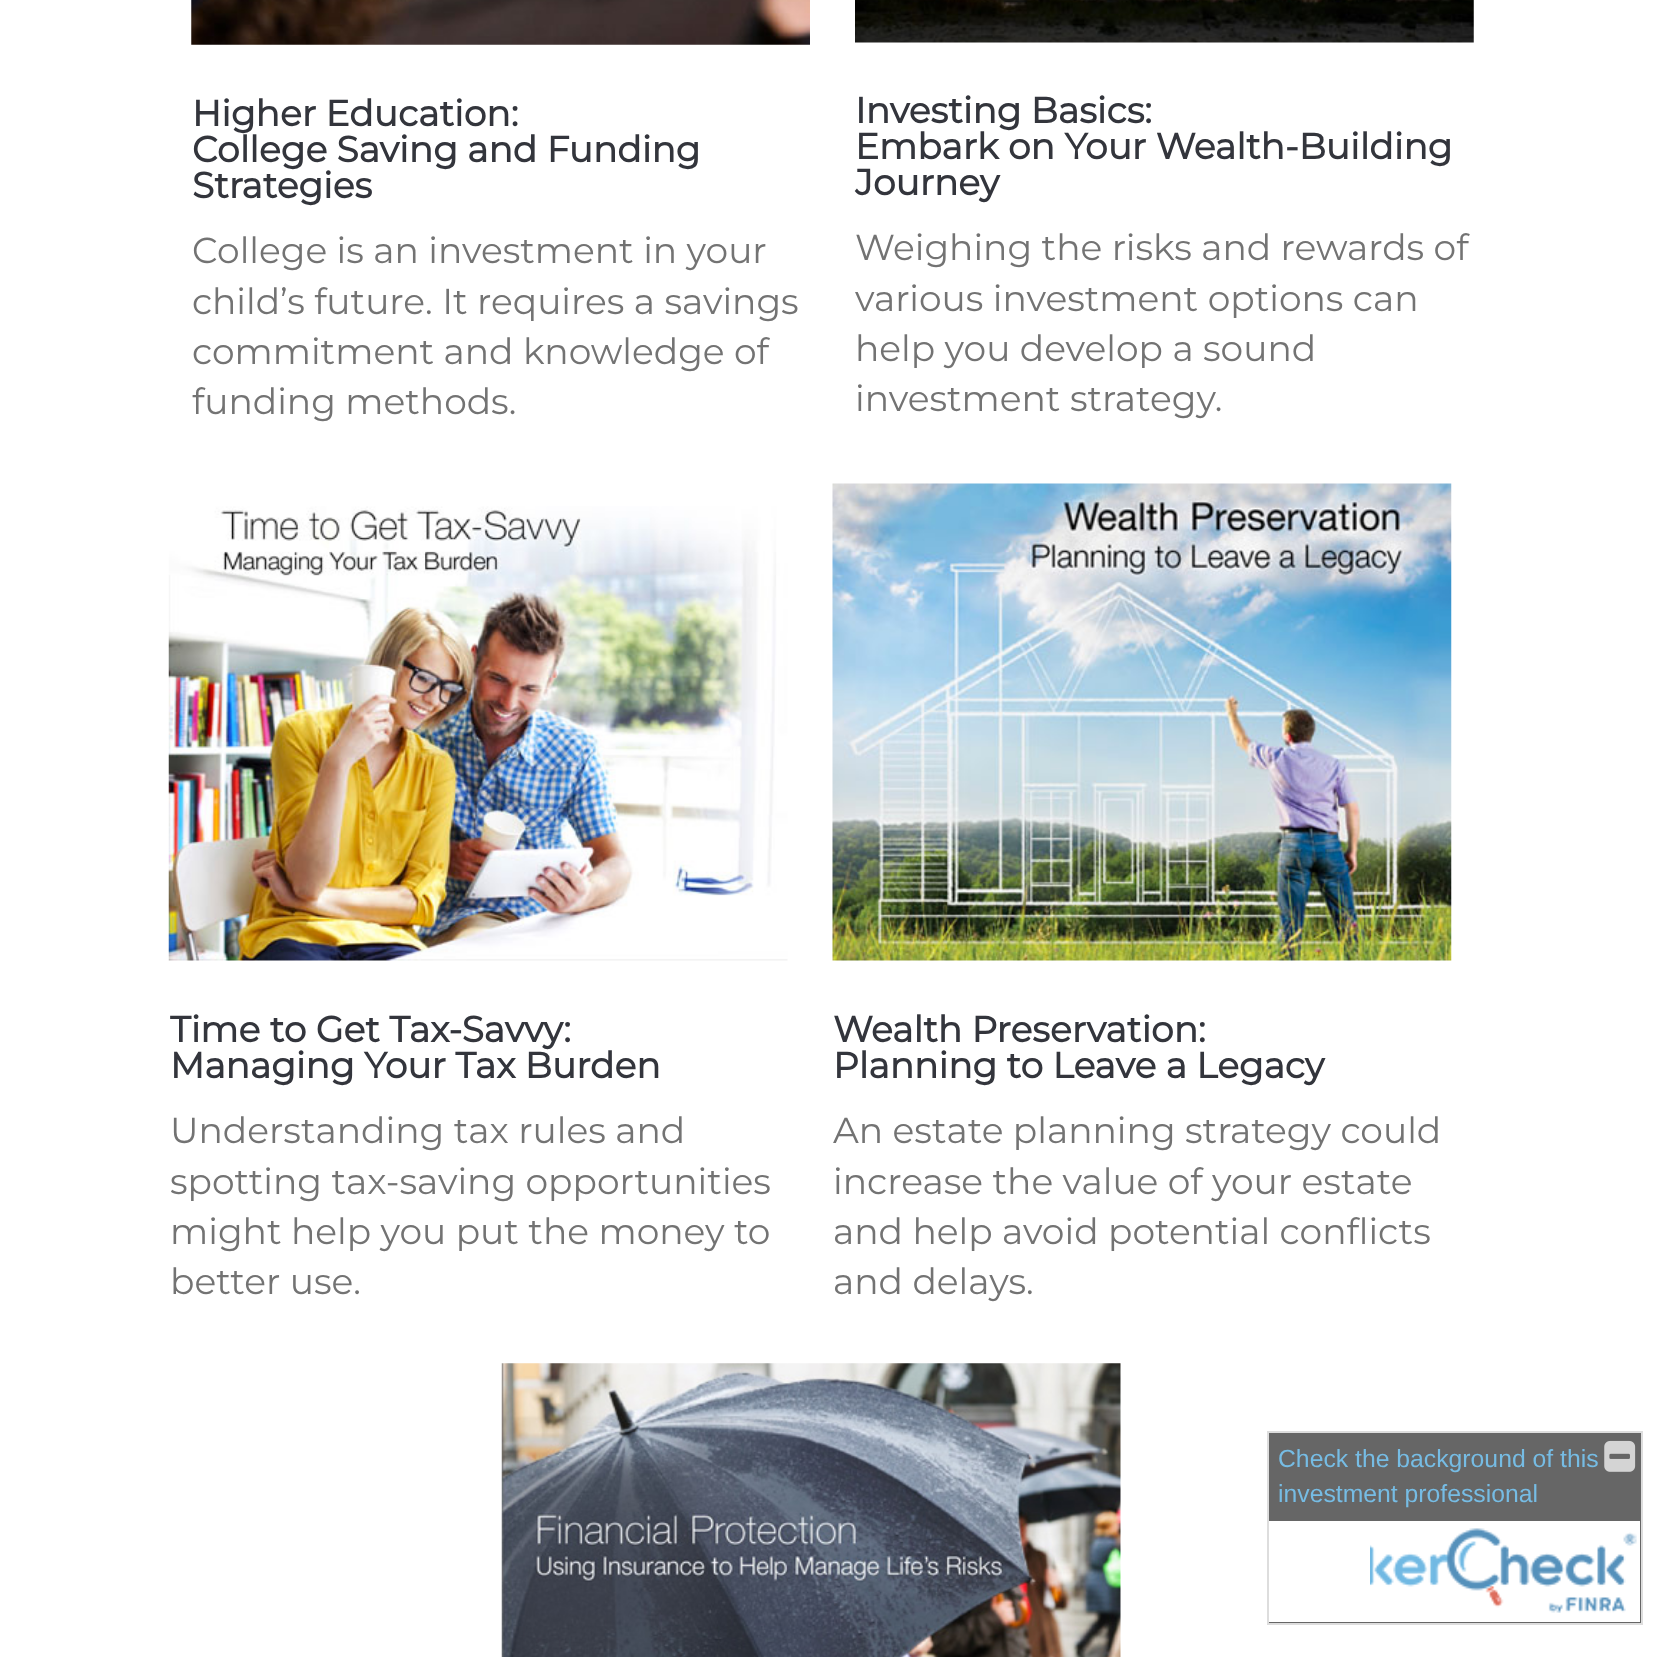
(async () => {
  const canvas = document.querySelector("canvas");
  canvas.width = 1664;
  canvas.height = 1657;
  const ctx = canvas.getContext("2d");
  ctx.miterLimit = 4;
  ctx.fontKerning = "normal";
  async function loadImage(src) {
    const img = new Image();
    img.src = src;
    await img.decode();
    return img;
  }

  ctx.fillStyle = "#ffffff";
  ctx.fillRect(0, 0, 1664, 1657);
  ctx.drawImage(await loadImage("img/1.png"), 191, 0, 619, 45);
  ctx.drawImage(await loadImage("img/2.png"), 855, 0, 619, 43);
  ctx.drawImage(await loadImage("img/3.png"), 168, 506, 620, 455);
  ctx.drawImage(await loadImage("img/4.png"), 832, 483, 620, 478);
  ctx.drawImage(await loadImage("img/5.png"), 501, 1363, 620, 294);
  ctx.fillStyle = "#666666";
  ctx.beginPath();
  ctx.rect(1268, 1432, 374, 192);
  ctx.fill();
  ctx.strokeStyle = "#dddddd";
  ctx.lineWidth = 2;
  ctx.stroke();
  ctx.drawImage(await loadImage("img/6.png"), 1604, 1440, 32, 32);
  ctx.fillStyle = "#ffffff";
  ctx.fillRect(1269, 1521, 371, 101);
  ctx.drawImage(await loadImage("img/7.png"), 1370, 1528, 267, 85);
  ctx.font = "bold 36px Montserrat";
  ctx.fillStyle = "#33353c";
  for (const [text, x, y] of [
    ["Higher Education:", 192, 126],
    ["College Saving and Funding", 192, 162],
    ["Strategies", 192, 198],
  ]) {
    ctx.fillText(text, x, y);
  }
  ctx.font = "36px Montserrat";
  ctx.fillStyle = "#737373";
  for (const [text, x, y] of [
    ["College is an investment in your", 192, 263],
    ["child’s future. It requires a savings", 192, 314],
    ["commitment and knowledge of", 192, 364],
    ["funding methods.", 192, 414],
  ]) {
    ctx.fillText(text, x, y);
  }
  ctx.font = "bold 36px Montserrat";
  ctx.fillStyle = "#33353c";
  for (const [text, x, y] of [
    ["Investing Basics:", 855, 123],
    ["Embark on Your Wealth-Building", 855, 159],
    ["Journey", 855, 195],
  ]) {
    ctx.fillText(text, x, y);
  }
  ctx.font = "36px Montserrat";
  ctx.fillStyle = "#737373";
  for (const [text, x, y] of [
    ["Weighing the risks and rewards of", 855, 260],
    ["various investment options can", 855, 311],
    ["help you develop a sound", 855, 361],
    ["investment strategy.", 855, 411],
  ]) {
    ctx.fillText(text, x, y);
  }
  ctx.font = "bold 36px Montserrat";
  ctx.fillStyle = "#33353c";
  ctx.fillText("Time to Get Tax-Savvy:", 170, 1042);
  ctx.fillText("Managing Your Tax Burden", 170, 1078);
  ctx.font = "36px Montserrat";
  ctx.fillStyle = "#737373";
  for (const [text, x, y] of [
    ["Understanding tax rules and", 170, 1143],
    ["spotting tax-saving opportunities", 170, 1194],
    ["might help you put the money to", 170, 1244],
    ["better use.", 170, 1294],
  ]) {
    ctx.fillText(text, x, y);
  }
  ctx.font = "bold 36px Montserrat";
  ctx.fillStyle = "#33353c";
  ctx.fillText("Wealth Preservation:", 833, 1042);
  ctx.fillText("Planning to Leave a Legacy", 833, 1078);
  ctx.font = "36px Montserrat";
  ctx.fillStyle = "#737373";
  for (const [text, x, y] of [
    ["An estate planning strategy could", 833, 1143],
    ["increase the value of your estate", 833, 1194],
    ["and help avoid potential conflicts", 833, 1244],
    ["and delays.", 833, 1294],
  ]) {
    ctx.fillText(text, x, y);
  }
  ctx.font = "24.75px Liberation Sans";
  ctx.fillStyle = "#76bce4";
  ctx.fillText("Check the background of this", 1278, 1467);
  ctx.fillText("investment professional", 1278, 1502);
})();
